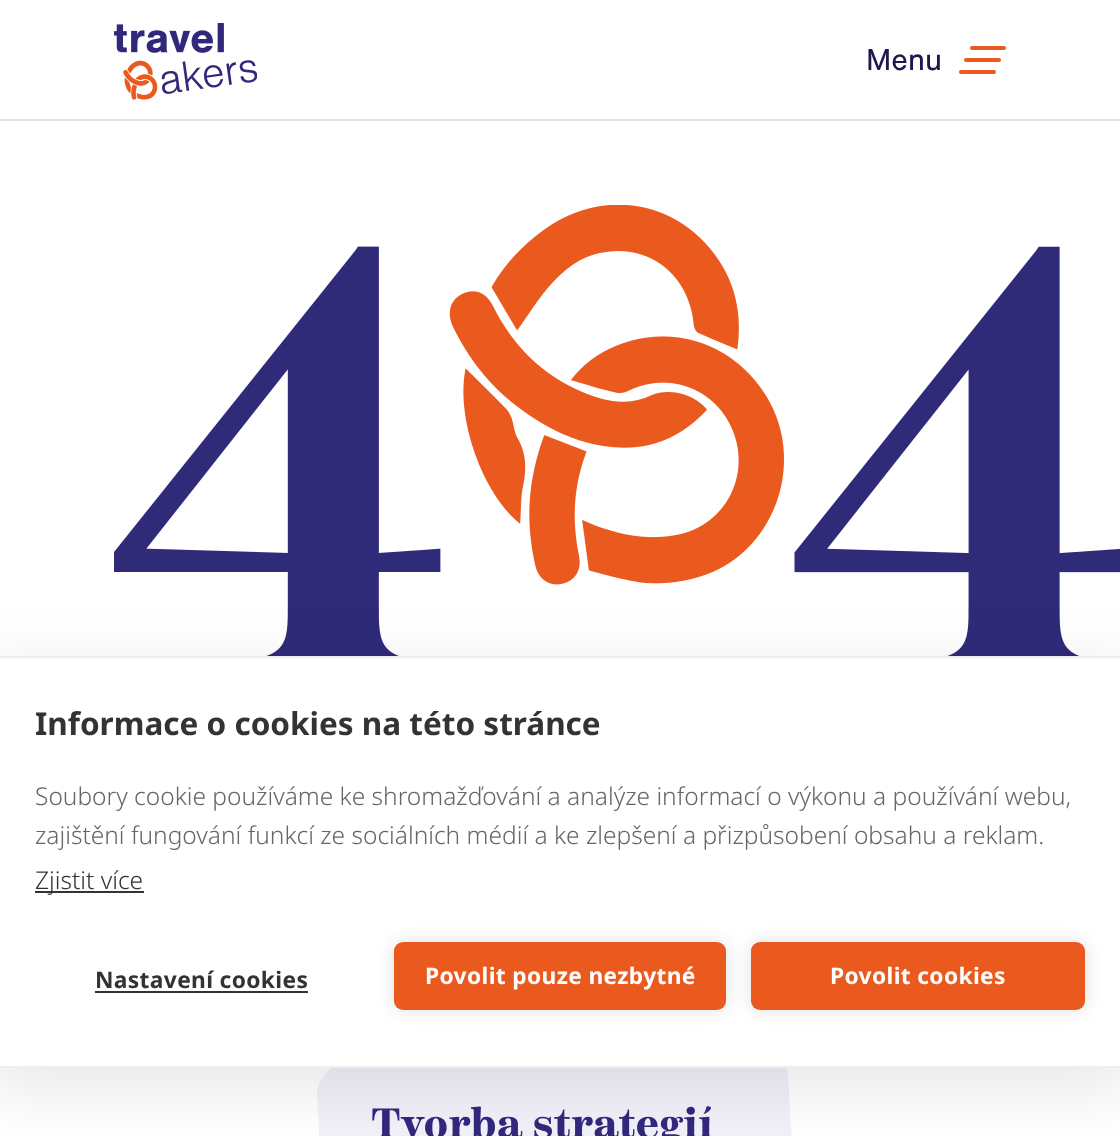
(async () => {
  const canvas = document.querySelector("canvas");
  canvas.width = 1120;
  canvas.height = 1136;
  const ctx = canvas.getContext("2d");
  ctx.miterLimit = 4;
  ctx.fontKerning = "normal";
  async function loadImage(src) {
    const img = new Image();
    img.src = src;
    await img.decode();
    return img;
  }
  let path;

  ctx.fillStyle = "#ffffff";
  ctx.fillRect(0, 0, 1120, 1136);
  ctx.fillStyle = "#e1e1e1";
  ctx.fillRect(0, 119, 1120, 2);
  ctx.drawImage(await loadImage("img/1.png"), 114, 23, 143, 77);
  ctx.fillStyle = "#ea591d";
  ctx.beginPath();
  ctx.roundRect(970, 46, 36, 4, 2);
  ctx.fill();
  ctx.beginPath();
  ctx.roundRect(964, 58, 37, 4, 2);
  ctx.fill();
  ctx.beginPath();
  ctx.roundRect(959, 70, 37, 4, 2);
  ctx.fill();
  ctx.drawImage(await loadImage("img/2.png"), 114, 205, 1006, 451);
  ctx.fillStyle = "#f2f1f9";
  path = new Path2D("M350 1062L751 1042H756L762 1043L767 1045L772 1047L776 1050L780 1054L783 1058L785 1063L787 1068L788 1073L805 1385V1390L804 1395L802 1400L799 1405L796 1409L792 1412L788 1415L783 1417L777 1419L772 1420L376 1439H365L360 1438L355 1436L350 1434L346 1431L342 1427L339 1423L337 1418L335 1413V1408L317 1096V1091L318 1086L320 1081L323 1077L326 1073L330 1069L334 1066L339 1064L345 1063Z");
  ctx.fill(path);
  ctx.fillStyle = "rgba(0, 0, 0, 0.1)";
  ctx.filter = "blur(35px)";
  ctx.beginPath();
  ctx.roundRect(-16, 674, 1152, 411, 14);
  ctx.fill();
  ctx.filter = "none";
  ctx.fillStyle = "#ffffff";
  ctx.beginPath();
  ctx.rect(-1, 657, 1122, 410);
  ctx.fill();
  ctx.strokeStyle = "#eeeeee";
  ctx.lineWidth = 2;
  ctx.stroke();
  ctx.fillStyle = "#333333";
  ctx.fillRect(35, 891, 109, 2);
  ctx.fillRect(95, 991, 213, 2);
  ctx.fillStyle = "rgba(0, 0, 0, 0.12)";
  ctx.filter = "blur(9px)";
  ctx.beginPath();
  ctx.roundRect(394, 942, 332, 68, 9);
  ctx.fill();
  ctx.filter = "none";
  ctx.fillStyle = "#ea591d";
  ctx.beginPath();
  ctx.roundRect(394, 942, 332, 68, 9);
  ctx.fill();
  ctx.fillStyle = "rgba(0, 0, 0, 0.12)";
  ctx.filter = "blur(9px)";
  ctx.beginPath();
  ctx.roundRect(751, 942, 334, 68, 9);
  ctx.fill();
  ctx.filter = "none";
  ctx.fillStyle = "#ea591d";
  ctx.beginPath();
  ctx.roundRect(751, 942, 334, 68, 9);
  ctx.fill();
  ctx.font = "31.5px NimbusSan";
  ctx.fillStyle = "#1e194d";
  ctx.fillText("Menu", 866, 70);
  ctx.font = "bold 42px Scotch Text";
  ctx.fillStyle = "#31287c";
  ctx.fillText("Tvorba strategií", 371, 1138);
  ctx.font = "bold 31.5px Noto Sans";
  ctx.fillStyle = "#333333";
  ctx.fillText("Informace o cookies na této stránce", 35, 735);
  ctx.font = "300 24.5px Noto Sans";
  ctx.fillStyle = "#666666";
  ctx.fillText("Soubory cookie používáme ke shromažďování a analýze informací o výkonu a používání webu,", 35, 805);
  ctx.fillText("zajištění fungování funkcí ze sociálních médií a ke zlepšení a přizpůsobení obsahu a reklam.", 35, 844);
  ctx.fillStyle = "#333333";
  ctx.fillText("Zjistit více", 35, 889);
  ctx.letterSpacing = "0.35px";
  ctx.font = "bold 22.75px Noto Sans";
  ctx.fillText("Nastavení cookies", 95, 988);
  ctx.fillStyle = "#ffffff";
  ctx.fillText("Povolit pouze nezbytné", 425, 984);
  ctx.fillText("Povolit cookies", 830, 984);
})();
